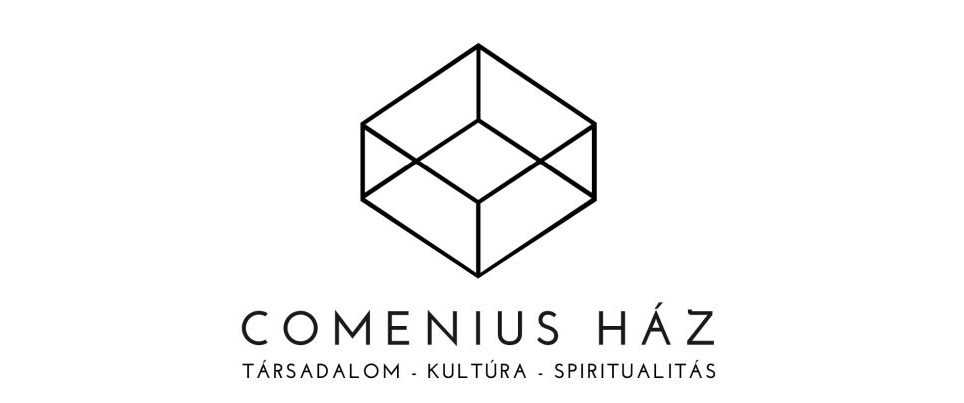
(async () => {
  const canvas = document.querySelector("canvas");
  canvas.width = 964;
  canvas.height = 403;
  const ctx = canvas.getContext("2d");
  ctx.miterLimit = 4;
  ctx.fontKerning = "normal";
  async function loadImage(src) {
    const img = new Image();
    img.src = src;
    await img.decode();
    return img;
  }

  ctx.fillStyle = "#ffffff";
  ctx.fillRect(0, 0, 964, 403);
  ctx.drawImage(await loadImage("img/1.png"), 238, 41, 480, 343);
})();
